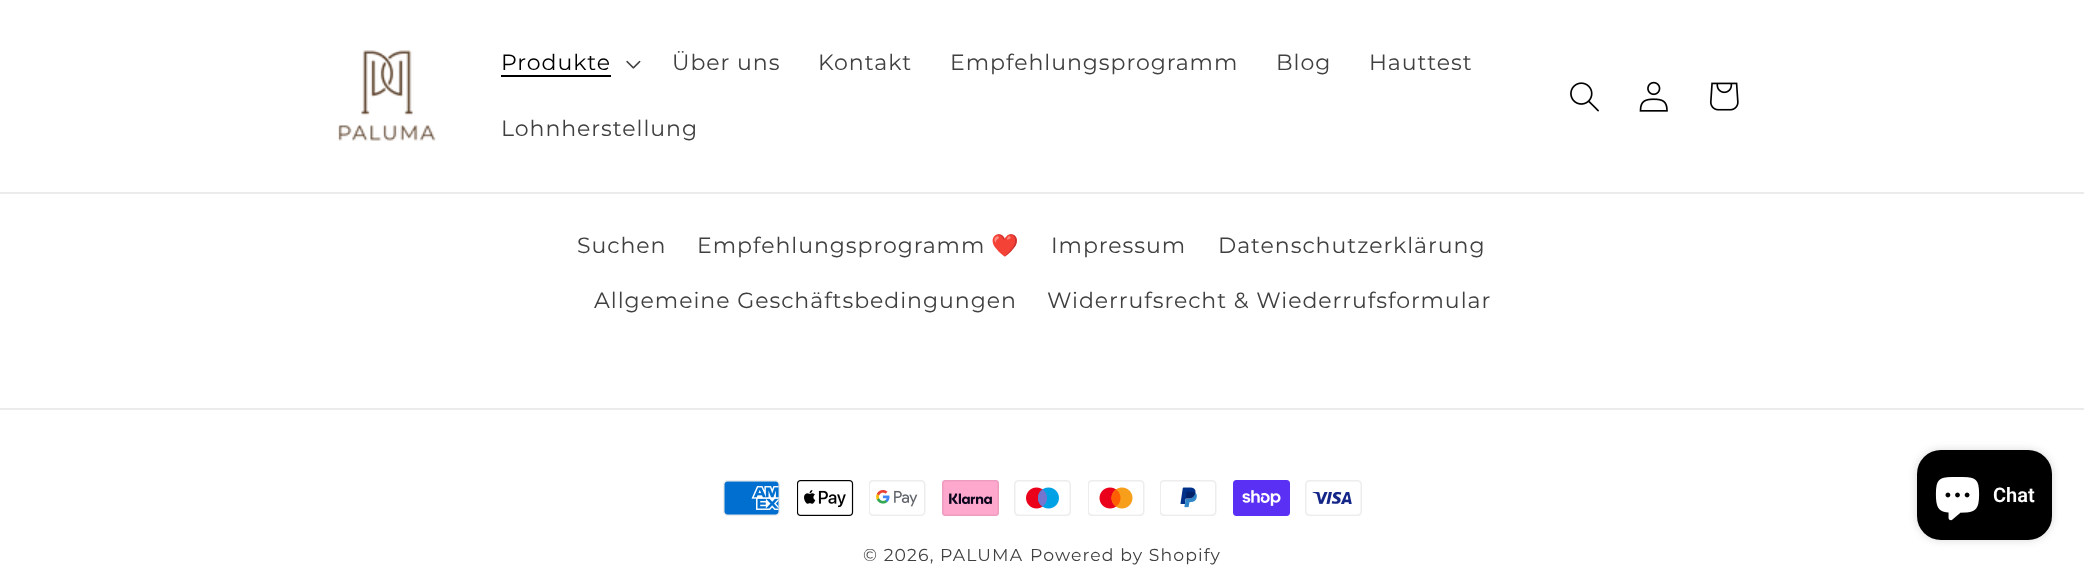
(async () => {
  const canvas = document.querySelector("canvas");
  canvas.width = 2084;
  canvas.height = 571;
  const ctx = canvas.getContext("2d");
  ctx.miterLimit = 4;
  ctx.fontKerning = "normal";
  async function loadImage(src) {
    const img = new Image();
    img.src = src;
    await img.decode();
    return img;
  }

  ctx.fillStyle = "#ffffff";
  ctx.fillRect(0, 0, 2084, 571);
  ctx.fillStyle = "#ebebeb";
  ctx.fillRect(0, 192, 2084, 2);
  ctx.drawImage(await loadImage("img/1.png"), 338, 50, 98, 91);
  ctx.fillStyle = "#000000";
  ctx.fillRect(501, 75, 110, 2);
  ctx.drawImage(await loadImage("img/2.png"), 626, 60, 15, 9);
  ctx.drawImage(await loadImage("img/3.png"), 1570, 82, 29, 30);
  ctx.drawImage(await loadImage("img/4.png"), 1639, 81, 29, 31);
  ctx.drawImage(await loadImage("img/5.png"), 1710, 82, 29, 29);
  ctx.fillStyle = "#ebebeb";
  ctx.fillRect(0, 408, 2084, 2);
  ctx.drawImage(await loadImage("img/6.png"), 723, 480, 57, 36);
  ctx.drawImage(await loadImage("img/7.png"), 797, 480, 57, 36);
  ctx.drawImage(await loadImage("img/8.png"), 869, 480, 57, 36);
  ctx.drawImage(await loadImage("img/9.png"), 942, 480, 57, 36);
  ctx.drawImage(await loadImage("img/10.png"), 1014, 480, 57, 36);
  ctx.drawImage(await loadImage("img/11.png"), 1088, 480, 57, 36);
  ctx.drawImage(await loadImage("img/12.png"), 1160, 480, 57, 36);
  ctx.drawImage(await loadImage("img/13.png"), 1233, 480, 57, 36);
  ctx.drawImage(await loadImage("img/14.png"), 1305, 480, 57, 36);
  ctx.fillStyle = "rgba(0, 0, 0, 0.15)";
  ctx.filter = "blur(4px)";
  ctx.beginPath();
  ctx.roundRect(1917, 450, 135, 90, 24);
  ctx.fill();
  ctx.filter = "none";
  ctx.fillStyle = "#000000";
  ctx.beginPath();
  ctx.roundRect(1917, 450, 135, 90, 24);
  ctx.fill();
  ctx.drawImage(await loadImage("img/15.png"), 1935, 477, 45, 44);
  ctx.letterSpacing = "0.95px";
  ctx.font = "22.05px Montserrat";
  ctx.fillText("Produkte", 501, 70);
  ctx.fillStyle = "#404040";
  for (const [text, x, y] of [
    ["Über uns", 672, 70],
    ["Kontakt", 818, 70],
    ["Empfehlungsprogramm", 950, 70],
    ["Blog", 1276, 70],
    ["Hauttest", 1369, 70],
    ["Lohnherstellung", 501, 136],
    ["Suchen", 577, 253],
    ["Empfehlungsprogramm", 697, 253],
  ]) {
    ctx.fillText(text, x, y);
  }
  ctx.font = "22.05px Noto Color Emoji";
  ctx.fillText("❤️", 991, 253);
  ctx.font = "22.05px Montserrat";
  for (const [text, x, y] of [
    ["Impressum", 1051, 253],
    ["Datenschutzerklärung", 1218, 253],
    ["Allgemeine Geschäftsbedingungen", 594, 308],
    ["Widerrufsrecht & Wiederrufsformular", 1047, 308],
  ]) {
    ctx.fillText(text, x, y);
  }
  ctx.letterSpacing = "1.1px";
  ctx.font = "17.25px Montserrat";
  ctx.fillText("© 2026, PALUMA", 863, 561);
  ctx.fillText("Powered by Shopify", 1030, 561);
  ctx.letterSpacing = "0px";
  ctx.font = "600 20px Roboto";
  ctx.fillStyle = "#ffffff";
  ctx.fillText("Chat", 1993, 502);
})();
